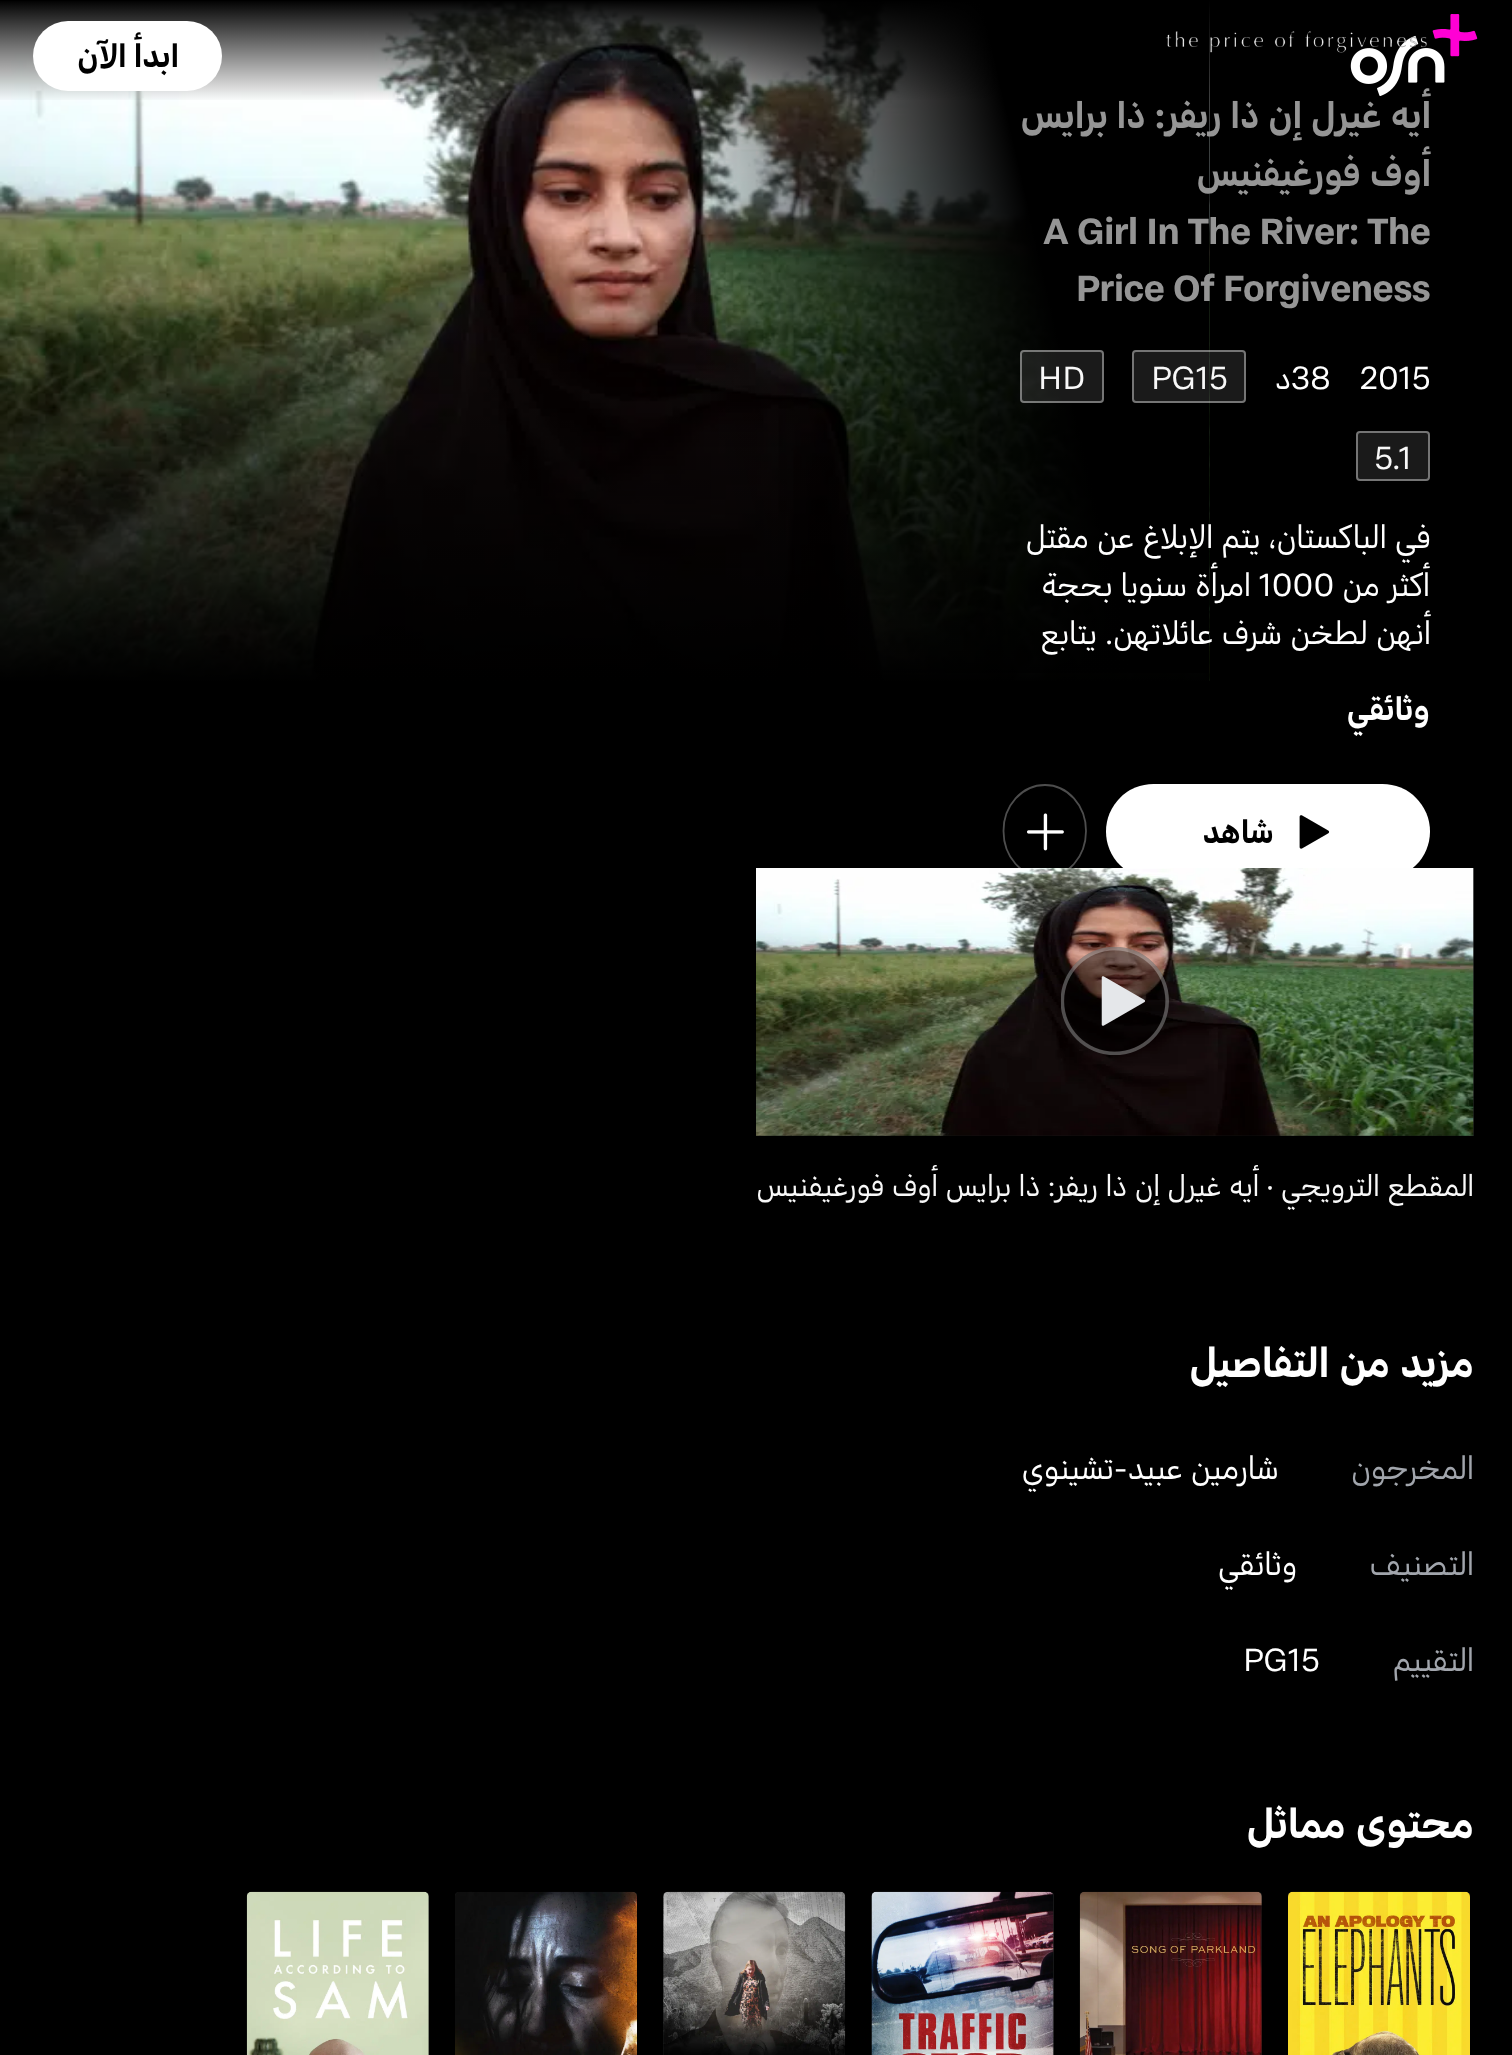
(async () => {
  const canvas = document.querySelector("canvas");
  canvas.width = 1512;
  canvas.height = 2055;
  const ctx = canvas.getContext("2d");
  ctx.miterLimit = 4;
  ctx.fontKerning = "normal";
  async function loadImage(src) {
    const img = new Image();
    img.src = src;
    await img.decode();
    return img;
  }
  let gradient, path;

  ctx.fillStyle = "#000000";
  ctx.fillRect(0, 0, 1512, 2055);
  ctx.drawImage(await loadImage("img/1.png"), 0, 1, 1210, 680);
  gradient = ctx.createLinearGradient(605, 683, 605, 179);
  gradient.addColorStop(0, "#000000");
  gradient.addColorStop(0.9, "rgba(0, 0, 0, 0)");
  ctx.fillStyle = gradient;
  ctx.fillRect(0, 239, 1209, 442);
  gradient = ctx.createLinearGradient(1269, 257, 544, 424);
  gradient.addColorStop(0.3, "#000000");
  gradient.addColorStop(0.8, "rgba(0, 0, 0, 0)");
  ctx.fillStyle = gradient;
  ctx.fillRect(608, 1, 601, 672);
  gradient = ctx.createLinearGradient(756, 0, 756, 102);
  gradient.addColorStop(0, "#000000");
  gradient.addColorStop(1, "rgba(0, 0, 0, 0)");
  ctx.fillStyle = gradient;
  ctx.fillRect(0, 1, 1210, 99);
  ctx.drawImage(await loadImage("img/2.png"), 1350, 14, 128, 82);
  ctx.fillStyle = "#ffffff";
  ctx.beginPath();
  ctx.roundRect(33, 21, 189, 70, 35);
  ctx.fill();
  ctx.drawImage(await loadImage("img/3.png"), 1166, 31, 261, 22);
  ctx.fillStyle = "rgba(255, 255, 255, 0.1)";
  ctx.beginPath();
  ctx.roundRect(1132, 350, 114, 53, 4);
  ctx.fill();
  ctx.beginPath();
  ctx.roundRect(1133, 351, 112, 51, 3);
  ctx.strokeStyle = "rgba(255, 255, 255, 0.4)";
  ctx.lineWidth = 2;
  ctx.stroke();
  ctx.beginPath();
  ctx.roundRect(1020, 350, 84, 53, 4);
  ctx.fill();
  ctx.beginPath();
  ctx.roundRect(1021, 351, 82, 51, 3);
  ctx.stroke();
  ctx.fillStyle = "#1a1a1a";
  ctx.beginPath();
  ctx.roundRect(1356, 431, 74, 50, 4);
  ctx.fill();
  ctx.beginPath();
  ctx.roundRect(1357, 432, 72, 48, 3);
  ctx.stroke();
  ctx.fillStyle = "#ffffff";
  ctx.beginPath();
  ctx.roundRect(1106, 784, 324, 95, 47.5);
  ctx.fill();
  ctx.drawImage(await loadImage("img/4.png"), 1299, 815, 31, 34);
  path = new Path2D("M1045 785C1067.5 785 1086 805.5 1086 831C1086 857 1067.5 877.5 1045 877.5C1022 877.5 1003.5 857 1003.5 831C1003.5 805.5 1022 785 1045 785Z");
  ctx.strokeStyle = "#4d4d4d";
  ctx.lineWidth = 1.8;
  ctx.stroke(path);
  ctx.drawImage(await loadImage("img/5.png"), 1027, 813, 37, 38);
  ctx.fillStyle = "#1b1c1d";
  ctx.fillRect(756, 868, 718, 268);
  ctx.drawImage(await loadImage("img/6.png"), 756, 868, 718, 268);
  ctx.drawImage(await loadImage("img/7.png"), 1061, 947, 108, 108);
  ctx.beginPath();
  ctx.roundRect(1288, 1892, 182, 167, 4);
  ctx.fill();
  ctx.drawImage(await loadImage("img/8.png"), 1288, 1891, 182, 164);
  ctx.beginPath();
  ctx.roundRect(1080, 1892, 182, 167, 4);
  ctx.fill();
  ctx.drawImage(await loadImage("img/9.png"), 1079, 1891, 183, 164);
  ctx.beginPath();
  ctx.roundRect(872, 1892, 182, 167, 4);
  ctx.fill();
  ctx.drawImage(await loadImage("img/10.png"), 871, 1891, 183, 164);
  ctx.beginPath();
  ctx.roundRect(663, 1892, 182, 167, 4);
  ctx.fill();
  ctx.drawImage(await loadImage("img/11.png"), 663, 1891, 183, 164);
  ctx.beginPath();
  ctx.roundRect(455, 1892, 182, 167, 4);
  ctx.fill();
  ctx.drawImage(await loadImage("img/12.png"), 455, 1891, 182, 164);
  ctx.beginPath();
  ctx.roundRect(247, 1892, 182, 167, 4);
  ctx.fill();
  ctx.drawImage(await loadImage("img/13.png"), 246, 1891, 183, 164);
  ctx.direction = "rtl";
  ctx.font = "bold 33.6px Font";
  ctx.fillStyle = "#000000";
  ctx.fillText("ابدأ الآن", 179, 67);
  ctx.font = "bold 38.4px Font";
  ctx.fillStyle = "#959595";
  ctx.fillText("أيه غيرل إن ذا ريفر: ذا برايس", 1431, 128);
  ctx.fillText("أوف فورغيفنيس", 1431, 186);
  ctx.direction = "ltr";
  ctx.fillText("A Girl In The River: The", 1043, 244);
  ctx.fillText("Price Of Forgiveness", 1076, 301);
  ctx.font = "33.6px Font";
  ctx.fillStyle = "#ffffff";
  ctx.fillText("2015", 1360, 389);
  ctx.fillText("38", 1291, 389);
  ctx.direction = "rtl";
  ctx.fillText("د", 1291, 389);
  ctx.direction = "ltr";
  ctx.fillStyle = "#f8f8f8";
  for (const [text, x, y] of [
    ["PG15", 1151, 389],
    ["HD", 1038, 389],
    ["5.1", 1374, 469],
  ]) {
    ctx.fillText(text, x, y);
  }
  ctx.direction = "rtl";
  ctx.fillStyle = "#ffffff";
  ctx.fillText("في الباكستان، يتم الإبلاغ عن مقتل", 1431, 548);
  ctx.fillText("أكثر من", 1430, 596);
  ctx.direction = "ltr";
  ctx.fillText("1000", 1259, 596);
  ctx.direction = "rtl";
  ctx.fillText("امرأة سنويا بحجة", 1251, 596);
  ctx.fillText("أنهن لطخن شرف عائلاتهن. يتابع", 1431, 644);
  ctx.font = "bold 33.6px Font";
  ctx.fillText("وثائقي", 1430, 720);
  ctx.fillStyle = "#000000";
  ctx.fillText("شاهد", 1274, 843);
  ctx.font = "31.2px Font";
  ctx.fillStyle = "#f8f8f8";
  ctx.fillText("المقطع الترويجي · أيه غيرل إن ذا ريفر: ذا برايس أوف فورغيفنيس", 1474, 1196);
  ctx.font = "bold 43.25px Font";
  ctx.fillStyle = "#ffffff";
  ctx.fillText("مزيد من التفاصيل", 1474, 1377);
  ctx.font = "33.6px Font";
  ctx.fillStyle = "#a1a5ac";
  ctx.fillText("المخرجون", 1474, 1479);
  ctx.fillStyle = "#ffffff";
  ctx.fillText("شارمين عبيد-تشينوي", 1279, 1479);
  ctx.fillStyle = "#a1a5ac";
  ctx.fillText("التصنيف", 1474, 1575);
  ctx.fillStyle = "#ffffff";
  ctx.fillText("وثائقي", 1297, 1575);
  ctx.fillStyle = "#a1a5ac";
  ctx.fillText("التقييم", 1474, 1671);
  ctx.direction = "ltr";
  ctx.fillStyle = "#ffffff";
  ctx.fillText("PG15", 1243, 1671);
  ctx.direction = "rtl";
  ctx.font = "bold 43.25px Font";
  ctx.fillText("محتوى مماثل", 1474, 1838);
})();
